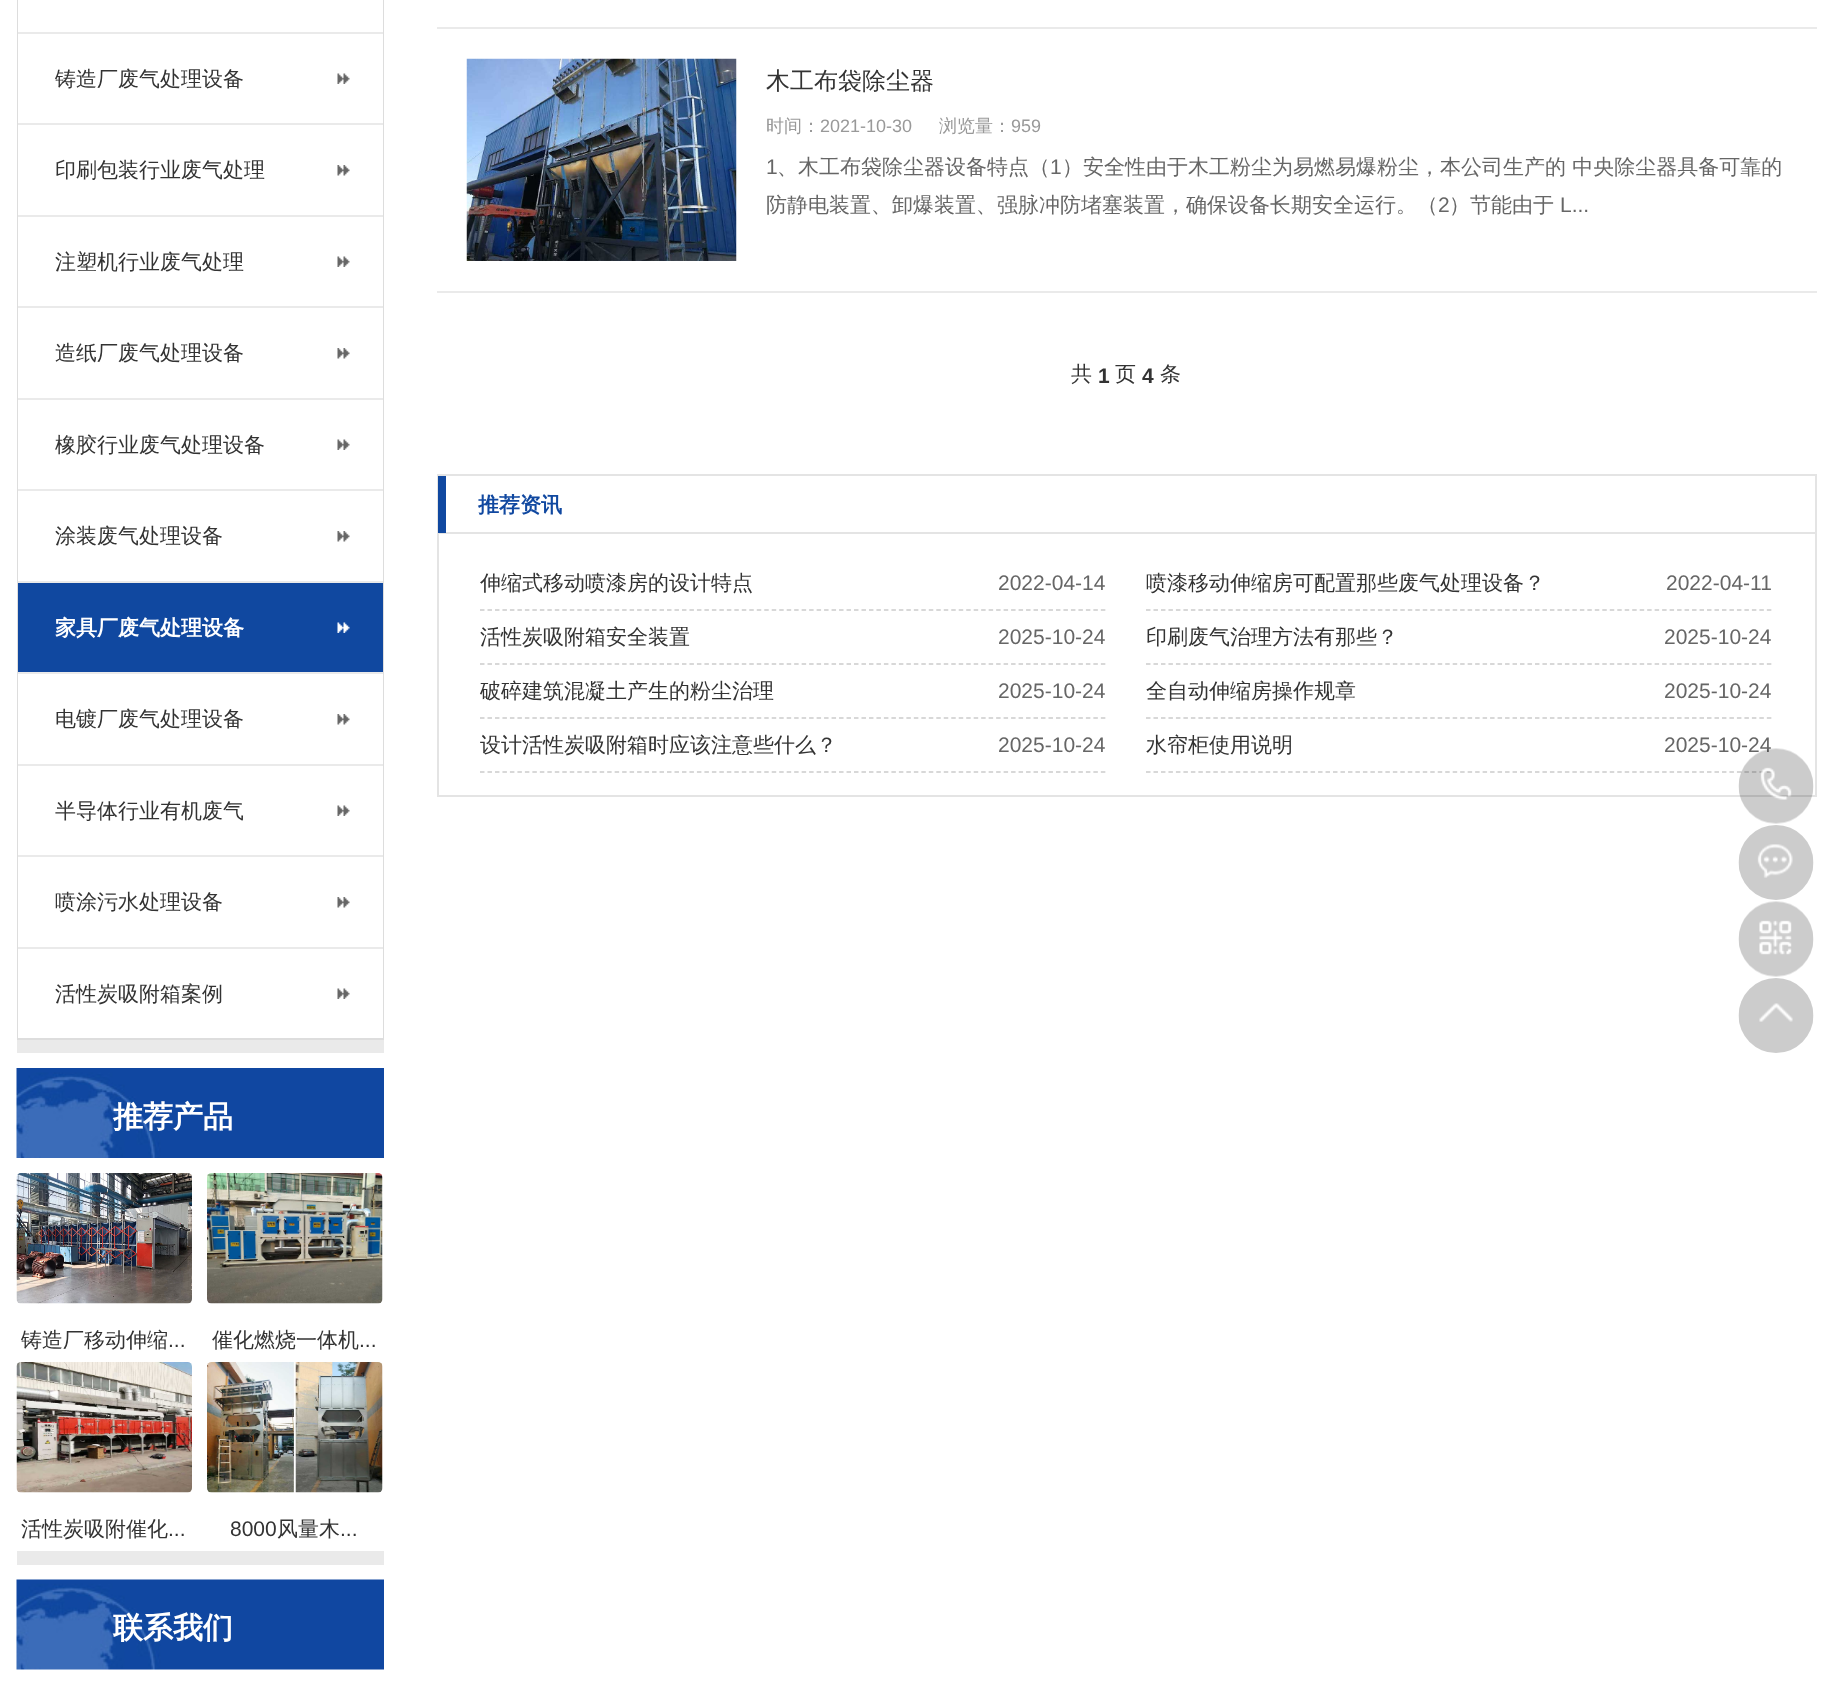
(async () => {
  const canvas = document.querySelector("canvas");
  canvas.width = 1831;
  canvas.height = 1702;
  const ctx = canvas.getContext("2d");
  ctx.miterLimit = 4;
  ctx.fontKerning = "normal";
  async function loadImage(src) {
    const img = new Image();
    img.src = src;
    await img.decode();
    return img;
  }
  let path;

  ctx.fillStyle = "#ffffff";
  ctx.fillRect(0, 0, 1831, 1702);
  ctx.fillStyle = "#eaeaea";
  ctx.fillRect(17, 1040, 367, 13);
  ctx.strokeStyle = "#dddddd";
  ctx.lineWidth = 2;
  ctx.strokeRect(18, -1, 365, 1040);
  ctx.fillStyle = "#ffffff";
  ctx.fillRect(18, 0, 365, 32);
  ctx.fillRect(18, 34, 365, 89);
  ctx.drawImage(await loadImage("img/1.png"), 337, 73, 13, 11);
  ctx.fillStyle = "#eaeaea";
  ctx.fillRect(18, 32, 365, 2);
  ctx.fillStyle = "#ffffff";
  ctx.fillRect(18, 125, 365, 90);
  ctx.drawImage(await loadImage("img/2.png"), 337, 165, 13, 11);
  ctx.fillStyle = "#eaeaea";
  ctx.fillRect(18, 123, 365, 2);
  ctx.fillStyle = "#ffffff";
  ctx.fillRect(18, 217, 365, 89);
  ctx.drawImage(await loadImage("img/1.png"), 337, 256, 13, 11);
  ctx.fillStyle = "#eaeaea";
  ctx.fillRect(18, 215, 365, 2);
  ctx.fillStyle = "#ffffff";
  ctx.fillRect(18, 308, 365, 90);
  ctx.drawImage(await loadImage("img/2.png"), 337, 348, 13, 11);
  ctx.fillStyle = "#eaeaea";
  ctx.fillRect(18, 306, 365, 2);
  ctx.fillStyle = "#ffffff";
  ctx.fillRect(18, 400, 365, 89);
  ctx.drawImage(await loadImage("img/1.png"), 337, 439, 13, 11);
  ctx.fillStyle = "#eaeaea";
  ctx.fillRect(18, 398, 365, 2);
  ctx.fillStyle = "#ffffff";
  ctx.fillRect(18, 491, 365, 90);
  ctx.drawImage(await loadImage("img/2.png"), 337, 531, 13, 11);
  ctx.fillStyle = "#eaeaea";
  ctx.fillRect(18, 489, 365, 2);
  ctx.fillStyle = "#1048a0";
  ctx.fillRect(18, 583, 365, 89);
  ctx.drawImage(await loadImage("img/3.png"), 337, 622, 13, 11);
  ctx.fillStyle = "#eaeaea";
  ctx.fillRect(18, 581, 365, 2);
  ctx.fillStyle = "#ffffff";
  ctx.fillRect(18, 674, 365, 90);
  ctx.drawImage(await loadImage("img/2.png"), 337, 714, 13, 11);
  ctx.fillStyle = "#eaeaea";
  ctx.fillRect(18, 672, 365, 2);
  ctx.fillStyle = "#ffffff";
  ctx.fillRect(18, 766, 365, 89);
  ctx.drawImage(await loadImage("img/1.png"), 337, 805, 13, 11);
  ctx.fillStyle = "#eaeaea";
  ctx.fillRect(18, 764, 365, 2);
  ctx.fillStyle = "#ffffff";
  ctx.fillRect(18, 857, 365, 90);
  ctx.drawImage(await loadImage("img/2.png"), 337, 897, 13, 11);
  ctx.fillStyle = "#eaeaea";
  ctx.fillRect(18, 855, 365, 2);
  ctx.fillStyle = "#ffffff";
  ctx.fillRect(18, 949, 365, 89);
  ctx.drawImage(await loadImage("img/1.png"), 337, 988, 13, 11);
  ctx.fillStyle = "#eaeaea";
  ctx.fillRect(18, 947, 365, 2);
  ctx.fillRect(17, 1551, 367, 14);
  ctx.drawImage(await loadImage("img/4.png"), 16, 1068, 368, 90);
  ctx.drawImage(await loadImage("img/5.png"), 16, 1173, 176, 131);
  ctx.drawImage(await loadImage("img/6.png"), 207, 1173, 176, 131);
  ctx.drawImage(await loadImage("img/7.png"), 16, 1362, 176, 131);
  ctx.drawImage(await loadImage("img/8.png"), 207, 1362, 176, 131);
  ctx.drawImage(await loadImage("img/9.png"), 16, 1579, 368, 91);
  ctx.fillRect(437, 27, 1380, 2);
  ctx.fillRect(437, 291, 1380, 2);
  ctx.drawImage(await loadImage("img/10.png"), 466, 58, 271, 203);
  ctx.strokeStyle = "#e4e4e4";
  ctx.strokeRect(438, 475, 1378, 58);
  for (const [x, y, w, h, color] of [
    [438, 476, 8, 57, "#1048a0"],
    [1815, 534, 2, 263, "#e4e4e4"],
    [437, 795, 1380, 2, "#e4e4e4"],
    [437, 534, 2, 263, "#e4e4e4"],
  ]) {
    ctx.fillStyle = color;
    ctx.fillRect(x, y, w, h);
  }
  path = new Path2D("M480 610H1105.5");
  ctx.strokeStyle = "#cccccc";
  ctx.lineWidth = 1.5;
  ctx.setLineDash([4.5, 2.98]);
  ctx.stroke(path);
  path = new Path2D("M1146 610H1771.5");
  ctx.stroke(path);
  path = new Path2D("M480 664H1105.5");
  ctx.stroke(path);
  path = new Path2D("M1146 664H1771.5");
  ctx.stroke(path);
  path = new Path2D("M480 718H1105.5");
  ctx.stroke(path);
  path = new Path2D("M1146 718H1771.5");
  ctx.stroke(path);
  path = new Path2D("M480 772H1105.5");
  ctx.stroke(path);
  path = new Path2D("M1146 772H1771.5");
  ctx.stroke(path);
  ctx.drawImage(await loadImage("img/13.png"), 1738, 825, 76, 75);
  ctx.drawImage(await loadImage("img/14.png"), 1757, 844, 36, 34);
  ctx.drawImage(await loadImage("img/15.png"), 1738, 901, 76, 76);
  ctx.drawImage(await loadImage("img/16.png"), 1759, 920, 33, 35);
  ctx.drawImage(await loadImage("img/17.png"), 1738, 978, 76, 75);
  ctx.drawImage(await loadImage("img/18.png"), 1759, 1003, 34, 19);
  ctx.font = "500 21px WenQuanYi Zen Hei";
  ctx.fillStyle = "#333333";
  for (const [text, x, y] of [
    ["铸造厂废气处理设备", 55, 86],
    ["印刷包装行业废气处理", 55, 177],
    ["注塑机行业废气处理", 55, 269],
    ["造纸厂废气处理设备", 55, 360],
    ["橡胶行业废气处理设备", 55, 452],
    ["涂装废气处理设备", 55, 543],
  ]) {
    ctx.fillText(text, x, y);
  }
  ctx.font = "bold 21px WenQuanYi Zen Hei";
  ctx.fillStyle = "#ffffff";
  ctx.fillText("家具厂废气处理设备", 55, 635);
  ctx.font = "500 21px WenQuanYi Zen Hei";
  ctx.fillStyle = "#333333";
  for (const [text, x, y] of [
    ["电镀厂废气处理设备", 55, 726],
    ["半导体行业有机废气", 55, 818],
    ["喷涂污水处理设备", 55, 909],
    ["活性炭吸附箱案例", 55, 1001],
  ]) {
    ctx.fillText(text, x, y);
  }
  ctx.font = "bold 30px WenQuanYi Zen Hei";
  ctx.fillStyle = "#ffffff";
  ctx.fillText("推荐产品", 113, 1127);
  ctx.font = "500 21px WenQuanYi Zen Hei";
  ctx.fillStyle = "#333333";
  ctx.fillText("铸造厂移动伸缩", 21, 1347);
  ctx.font = "21px Liberation Sans";
  ctx.fillText("...", 168, 1347);
  ctx.font = "500 21px WenQuanYi Zen Hei";
  ctx.fillText("催化燃烧一体机", 212, 1347);
  ctx.font = "21px Liberation Sans";
  ctx.fillText("...", 359, 1347);
  ctx.font = "500 21px WenQuanYi Zen Hei";
  ctx.fillText("活性炭吸附催化", 21, 1536);
  ctx.font = "21px Liberation Sans";
  ctx.fillText("...", 168, 1536);
  ctx.fillText("8000", 230, 1536);
  ctx.font = "500 21px WenQuanYi Zen Hei";
  ctx.fillText("风量木", 277, 1536);
  ctx.font = "21px Liberation Sans";
  ctx.fillText("...", 340, 1536);
  ctx.font = "bold 30px WenQuanYi Zen Hei";
  ctx.fillStyle = "#ffffff";
  ctx.fillText("联系我们", 113, 1638);
  ctx.font = "500 24px WenQuanYi Zen Hei";
  ctx.fillStyle = "#333333";
  ctx.fillText("木工布袋除尘器", 766, 89);
  ctx.font = "500 18px WenQuanYi Zen Hei";
  ctx.fillStyle = "#999999";
  ctx.fillText("时间：", 766, 132);
  ctx.font = "18px Liberation Sans";
  ctx.fillText("2021-10-30", 820, 132);
  ctx.font = "500 18px WenQuanYi Zen Hei";
  ctx.fillText("浏览量：", 939, 132);
  ctx.font = "18px Liberation Sans";
  ctx.fillText("959", 1011, 132);
  ctx.font = "21px Liberation Sans";
  ctx.fillStyle = "#666666";
  ctx.fillText("1", 766, 174);
  ctx.font = "500 21px WenQuanYi Zen Hei";
  ctx.fillText("、木工布袋除尘器设备特点（", 777, 174);
  ctx.font = "21px Liberation Sans";
  ctx.fillText("1", 1050, 174);
  ctx.font = "500 21px WenQuanYi Zen Hei";
  ctx.fillText("）安全性由于木工粉尘为易燃易爆粉尘，本公司生产的 中央除尘器具备可靠的", 1062, 174);
  ctx.fillText("防静电装置、卸爆装置、强脉冲防堵塞装置，确保设备长期安全运行。（", 766, 212);
  ctx.font = "21px Liberation Sans";
  ctx.fillText("2", 1438, 212);
  ctx.font = "500 21px WenQuanYi Zen Hei";
  ctx.fillText("）节能由于", 1449, 212);
  ctx.font = "21px Liberation Sans";
  ctx.fillText("L...", 1560, 212);
  ctx.font = "500 21px WenQuanYi Zen Hei";
  ctx.fillStyle = "#333333";
  ctx.fillText("共", 1071, 381);
  ctx.font = "bold 21px Liberation Sans";
  ctx.fillText("1", 1098, 383);
  ctx.font = "500 21px WenQuanYi Zen Hei";
  ctx.fillText("页", 1115, 381);
  ctx.font = "bold 21px Liberation Sans";
  ctx.fillText("4", 1142, 383);
  ctx.font = "500 21px WenQuanYi Zen Hei";
  ctx.fillText("条", 1160, 381);
  ctx.font = "bold 21px WenQuanYi Zen Hei";
  ctx.fillStyle = "#1048a0";
  ctx.fillText("推荐资讯", 478, 512);
  ctx.font = "500 21px WenQuanYi Zen Hei";
  ctx.fillStyle = "#333333";
  ctx.fillText("伸缩式移动喷漆房的设计特点", 480, 590);
  ctx.font = "21px Liberation Sans";
  ctx.fillStyle = "#666666";
  ctx.fillText("2022-04-14", 998, 590);
  ctx.font = "500 21px WenQuanYi Zen Hei";
  ctx.fillStyle = "#333333";
  ctx.fillText("喷漆移动伸缩房可配置那些废气处理设备？", 1146, 590);
  ctx.font = "21px Liberation Sans";
  ctx.fillStyle = "#666666";
  ctx.fillText("2022-04-11", 1666, 590);
  ctx.font = "500 21px WenQuanYi Zen Hei";
  ctx.fillStyle = "#333333";
  ctx.fillText("活性炭吸附箱安全装置", 480, 644);
  ctx.font = "21px Liberation Sans";
  ctx.fillStyle = "#666666";
  ctx.fillText("2025-10-24", 998, 644);
  ctx.font = "500 21px WenQuanYi Zen Hei";
  ctx.fillStyle = "#333333";
  ctx.fillText("印刷废气治理方法有那些？", 1146, 644);
  ctx.font = "21px Liberation Sans";
  ctx.fillStyle = "#666666";
  ctx.fillText("2025-10-24", 1664, 644);
  ctx.font = "500 21px WenQuanYi Zen Hei";
  ctx.fillStyle = "#333333";
  ctx.fillText("破碎建筑混凝土产生的粉尘治理", 480, 698);
  ctx.font = "21px Liberation Sans";
  ctx.fillStyle = "#666666";
  ctx.fillText("2025-10-24", 998, 698);
  ctx.font = "500 21px WenQuanYi Zen Hei";
  ctx.fillStyle = "#333333";
  ctx.fillText("全自动伸缩房操作规章", 1146, 698);
  ctx.font = "21px Liberation Sans";
  ctx.fillStyle = "#666666";
  ctx.fillText("2025-10-24", 1664, 698);
  ctx.font = "500 21px WenQuanYi Zen Hei";
  ctx.fillStyle = "#333333";
  ctx.fillText("设计活性炭吸附箱时应该注意些什么？", 480, 752);
  ctx.font = "21px Liberation Sans";
  ctx.fillStyle = "#666666";
  ctx.fillText("2025-10-24", 998, 752);
  ctx.font = "500 21px WenQuanYi Zen Hei";
  ctx.fillStyle = "#333333";
  ctx.fillText("水帘柜使用说明", 1146, 752);
  ctx.font = "21px Liberation Sans";
  ctx.fillStyle = "#666666";
  ctx.fillText("2025-10-24", 1664, 752);
  ctx.drawImage(await loadImage("img/11.png"), 1738, 748, 76, 76);
  ctx.drawImage(await loadImage("img/12.png"), 1760, 767, 32, 33);
})();
